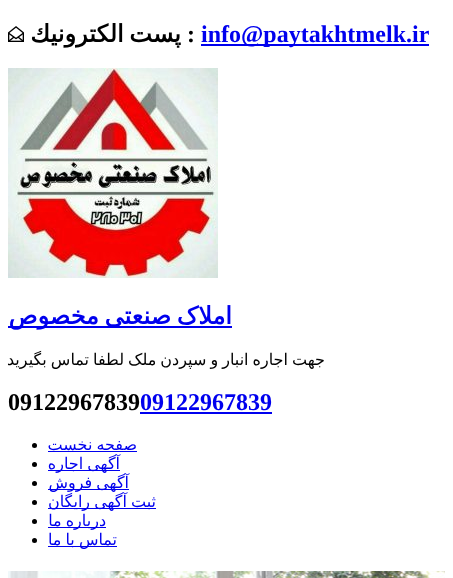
(async () => {
  const canvas = document.querySelector("canvas");
  canvas.width = 453;
  canvas.height = 578;
  const ctx = canvas.getContext("2d");
  ctx.miterLimit = 4;
  ctx.fontKerning = "normal";
  async function loadImage(src) {
    const img = new Image();
    img.src = src;
    await img.decode();
    return img;
  }

  ctx.fillStyle = "#ffffff";
  ctx.fillRect(0, 0, 453, 578);
  ctx.fillStyle = "#0000ee";
  ctx.fillRect(201, 44, 228, 2);
  ctx.drawImage(await loadImage("img/1.png"), 8, 26, 16, 16);
  ctx.drawImage(await loadImage("img/2.png"), 8, 68, 210, 210);
  for (const [x, y, w, h, color] of [
    [8, 326, 224, 2, "#0000ee"],
    [140, 412, 132, 2, "#0000ee"],
    [48, 451, 89, 1, "#0000ee"],
  ]) {
    ctx.fillStyle = color;
    ctx.fillRect(x, y, w, h);
  }
  ctx.fillStyle = "#000000";
  ctx.beginPath();
  ctx.arc(34.5, 445.5, 2.5, 0, Math.PI * 2);
  ctx.fill();
  ctx.fillStyle = "#0000ee";
  ctx.fillRect(48, 470, 72, 1);
  ctx.fillStyle = "#000000";
  ctx.beginPath();
  ctx.arc(34.5, 464.5, 2.5, 0, Math.PI * 2);
  ctx.fill();
  ctx.fillStyle = "#0000ee";
  ctx.fillRect(48, 489, 81, 1);
  ctx.fillStyle = "#000000";
  ctx.beginPath();
  ctx.arc(34.5, 483.5, 2.5, 0, Math.PI * 2);
  ctx.fill();
  ctx.fillStyle = "#0000ee";
  ctx.fillRect(48, 508, 108, 1);
  ctx.fillStyle = "#000000";
  ctx.beginPath();
  ctx.arc(34.5, 502.5, 2.5, 0, Math.PI * 2);
  ctx.fill();
  ctx.fillStyle = "#0000ee";
  ctx.fillRect(48, 527, 58, 1);
  ctx.fillStyle = "#000000";
  ctx.beginPath();
  ctx.arc(34.5, 521.5, 2.5, 0, Math.PI * 2);
  ctx.fill();
  ctx.fillStyle = "#0000ee";
  ctx.fillRect(48, 546, 69, 1);
  ctx.fillStyle = "#000000";
  ctx.beginPath();
  ctx.arc(34.5, 540.5, 2.5, 0, Math.PI * 2);
  ctx.fill();
  ctx.drawImage(await loadImage("img/3.png"), 8, 571, 437, 7);
  ctx.font = "bold 24px Liberation Serif";
  ctx.fillStyle = "#0000ee";
  ctx.fillText("info@paytakhtmelk.ir", 201, 42);
  ctx.fillStyle = "#000000";
  ctx.fillText(":", 187, 42);
  ctx.wordSpacing = "-2px";
  ctx.direction = "rtl";
  ctx.font = "bold 24px DejaVu Sans";
  ctx.fillText("پست الكترونيك", 181, 42);
  ctx.fillStyle = "#0000ee";
  ctx.fillText("املاک صنعتی مخصوص", 232, 324);
  ctx.wordSpacing = "-1px";
  ctx.font = "16px DejaVu Sans";
  ctx.fillStyle = "#000000";
  ctx.fillText("جهت اجاره انبار و سپردن ملک لطفا تماس بگیرید", 325, 365);
  ctx.wordSpacing = "0px";
  ctx.direction = "ltr";
  ctx.font = "bold 24px Liberation Serif";
  ctx.fillStyle = "#0000ee";
  ctx.fillText("09122967839", 140, 410);
  ctx.fillStyle = "#000000";
  ctx.fillText("09122967839", 8, 410);
  ctx.wordSpacing = "-1px";
  ctx.direction = "rtl";
  ctx.font = "16px DejaVu Sans";
  ctx.fillStyle = "#0000ee";
  for (const [text, x, y] of [
    ["صفحه نخست", 137, 450],
    ["آگهی اجاره", 120, 469],
    ["آگهی فروش", 129, 488],
    ["ثبت آگهی رایگان", 156, 507],
    ["درباره ما", 106, 526],
    ["تماس با ما", 117, 545],
  ]) {
    ctx.fillText(text, x, y);
  }
})();
